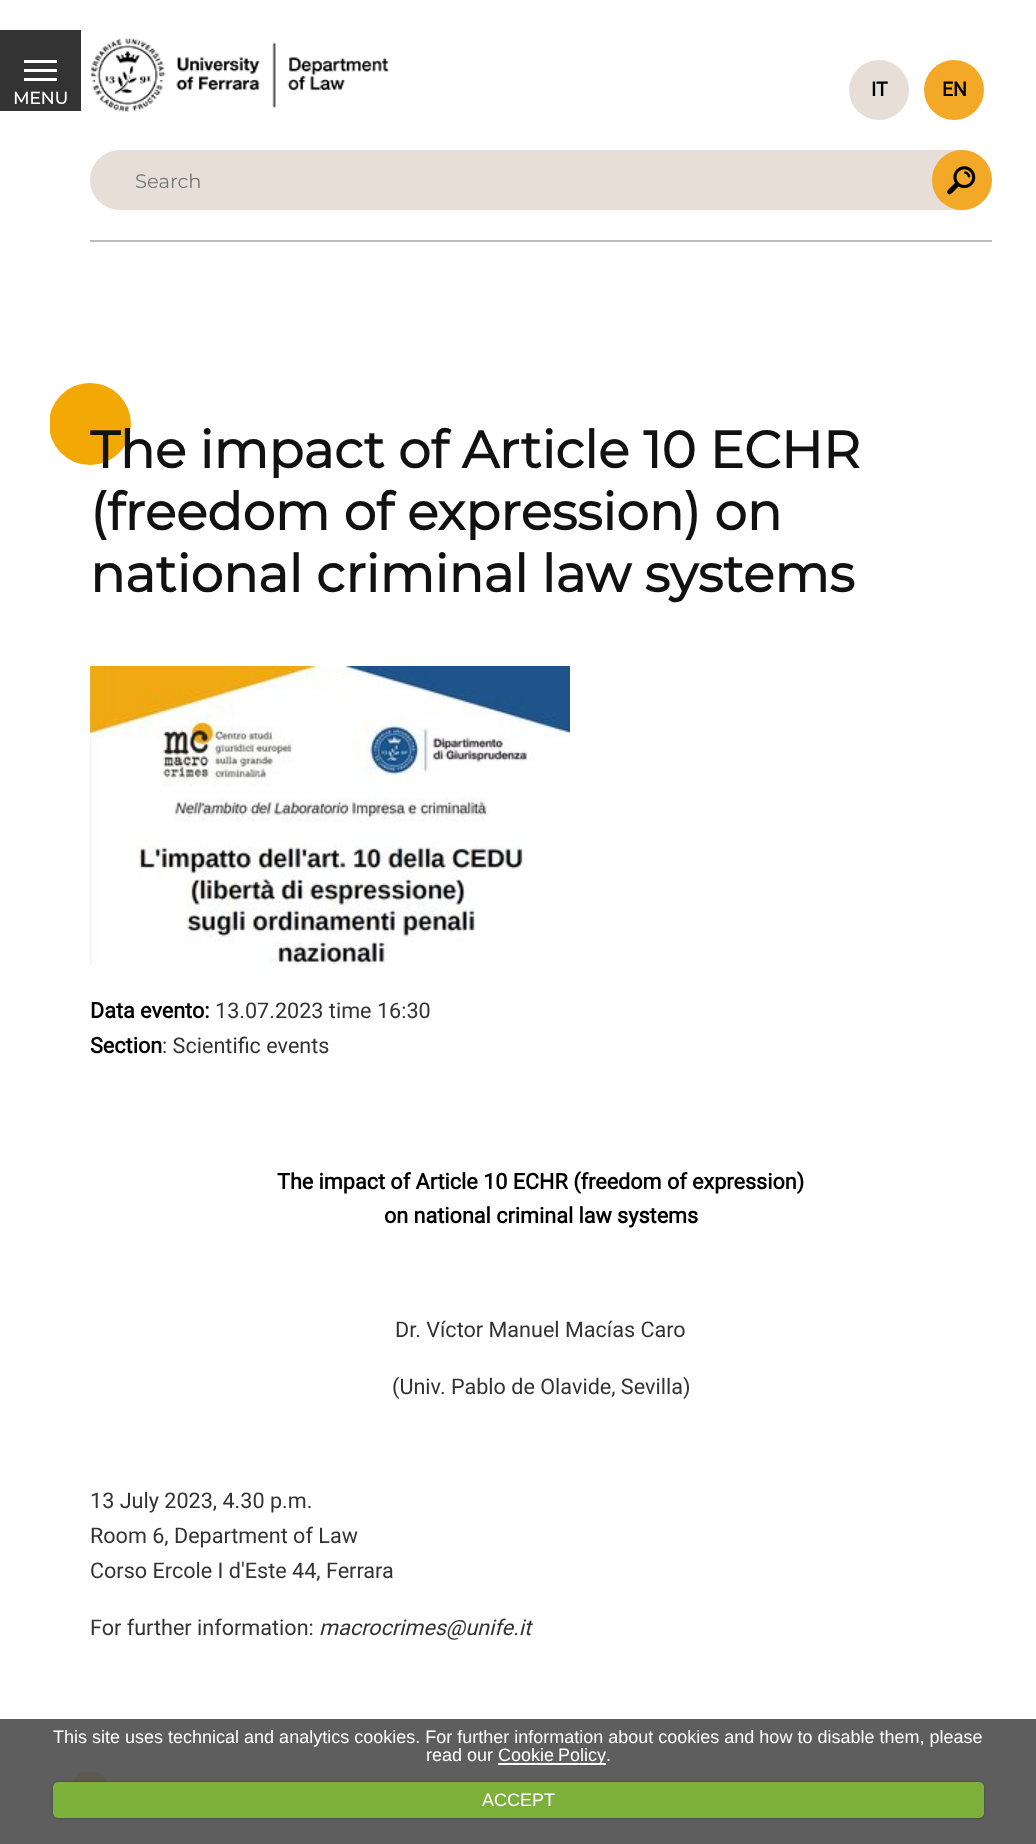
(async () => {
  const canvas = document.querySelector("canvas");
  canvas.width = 1036;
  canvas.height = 1844;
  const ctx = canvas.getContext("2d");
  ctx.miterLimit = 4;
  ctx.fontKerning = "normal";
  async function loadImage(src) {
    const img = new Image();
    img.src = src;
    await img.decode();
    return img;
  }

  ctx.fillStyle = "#ffffff";
  ctx.fillRect(0, 0, 1036, 1844);
  for (const [x, y, w, h, color] of [
    [0, 30, 81, 81, "#333333"],
    [24, 69, 33, 3, "#ffffff"],
    [24, 60, 33, 3, "#ffffff"],
    [24, 78, 33, 3, "#ffffff"],
    [0, 1719, 1036, 125, "#5e5e5e"],
    [90, 240, 902, 2, "#bbbbbb"],
  ]) {
    ctx.fillStyle = color;
    ctx.fillRect(x, y, w, h);
  }
  ctx.drawImage(await loadImage("img/1.png"), 91, 38, 298, 74);
  ctx.fillStyle = "#e7dfd7";
  ctx.beginPath();
  ctx.arc(879, 90, 30, 0, Math.PI * 2);
  ctx.fill();
  ctx.fillStyle = "#f4a827";
  ctx.beginPath();
  ctx.arc(954, 90, 30, 0, Math.PI * 2);
  ctx.fill();
  ctx.fillStyle = "#e7dfd7";
  ctx.beginPath();
  ctx.roundRect(90, 150, 902, 60, 30);
  ctx.fill();
  ctx.fillStyle = "#f4a827";
  ctx.beginPath();
  ctx.arc(962, 180, 30, 0, Math.PI * 2);
  ctx.fill();
  ctx.drawImage(await loadImage("img/2.png"), 947, 166, 29, 29);
  ctx.save();
  ctx.beginPath();
  ctx.rect(50, 383, 82, 82);
  ctx.clip();
  ctx.fillStyle = "#f2a905";
  ctx.beginPath();
  ctx.arc(90, 424, 41, 0, Math.PI * 2);
  ctx.fill();
  ctx.restore();
  ctx.drawImage(await loadImage("img/3.png"), 90, 666, 480, 300);
  ctx.save();
  ctx.beginPath();
  ctx.rect(72, 1772, 38, 37);
  ctx.clip();
  ctx.fillStyle = "#5e5a52";
  ctx.beginPath();
  ctx.arc(90, 1790, 19, 0, Math.PI * 2);
  ctx.fill();
  ctx.restore();
  ctx.fillStyle = "#ffffff";
  ctx.fillRect(498, 1763, 108, 2);
  ctx.fillStyle = "rgba(0, 0, 0, 0.25)";
  ctx.filter = "blur(1.5px)";
  ctx.beginPath();
  ctx.roundRect(53, 1782, 931, 36, 5);
  ctx.fill();
  ctx.filter = "none";
  ctx.fillStyle = "#7daf3b";
  ctx.beginPath();
  ctx.roundRect(53, 1782, 931, 36, 5);
  ctx.fill();
  ctx.font = "bold 17px Montserrat";
  ctx.fillStyle = "#ffffff";
  ctx.fillText("MENU", 13, 104);
  ctx.font = "bold 19.5px Roboto";
  ctx.fillStyle = "#000000";
  ctx.fillText("IT", 871, 96);
  ctx.fillText("EN", 942, 96);
  ctx.font = "100 19.5px Montserrat";
  ctx.fillStyle = "#757575";
  ctx.fillText("Search", 135, 188);
  ctx.font = "bold 51.8px Montserrat";
  ctx.fillStyle = "#111111";
  for (const [text, x, y] of [
    ["The impact of Article 10 ECHR", 90, 468],
    ["(freedom of expression) on", 90, 530],
    ["national criminal law systems", 90, 592],
  ]) {
    ctx.fillText(text, x, y);
  }
  ctx.font = "bold 21.6px Roboto";
  ctx.fillStyle = "#000000";
  ctx.fillText("Data evento:", 90, 1018);
  ctx.font = "21.6px Roboto";
  ctx.fillStyle = "#333333";
  ctx.fillText("13.07.2023 time 16:30", 215, 1018);
  ctx.font = "bold 21.6px Roboto";
  ctx.fillStyle = "#000000";
  ctx.fillText("Section", 90, 1053);
  ctx.font = "21.6px Roboto";
  ctx.fillStyle = "#333333";
  ctx.fillText(": Scientific events", 162, 1053);
  ctx.font = "bold 21.6px Roboto";
  ctx.fillStyle = "#000000";
  ctx.fillText("The impact of Article 10 ECHR (freedom of expression)", 277, 1189);
  ctx.fillText("on national criminal law systems", 384, 1223);
  ctx.font = "21.6px Roboto";
  ctx.fillStyle = "#333333";
  for (const [text, x, y] of [
    ["Dr. Víctor Manuel Macías Caro", 395, 1337],
    ["(Univ. Pablo de Olavide, Sevilla)", 392, 1394],
    ["13 July 2023, 4.30 p.m.", 90, 1508],
    ["Room 6, Department of Law", 90, 1543],
    ["Corso Ercole I d'Este 44, Ferrara", 90, 1578],
    ["For further information:", 90, 1635],
  ]) {
    ctx.fillText(text, x, y);
  }
  ctx.font = "italic 21.6px Roboto";
  ctx.fillText("macrocrimes@unife.it", 319, 1635);
  ctx.font = "18px Liberation Sans";
  ctx.fillStyle = "#ffffff";
  ctx.fillText("This site uses technical and analytics cookies. For further information about cookies and how to disable them, please", 53, 1743);
  ctx.fillText("read our", 426, 1761);
  ctx.wordSpacing = "-1px";
  ctx.fillText("Cookie Policy", 498, 1761);
  ctx.wordSpacing = "0px";
  ctx.fillText(".", 606, 1761);
  ctx.fillText("ACCEPT", 482, 1806);
})();
